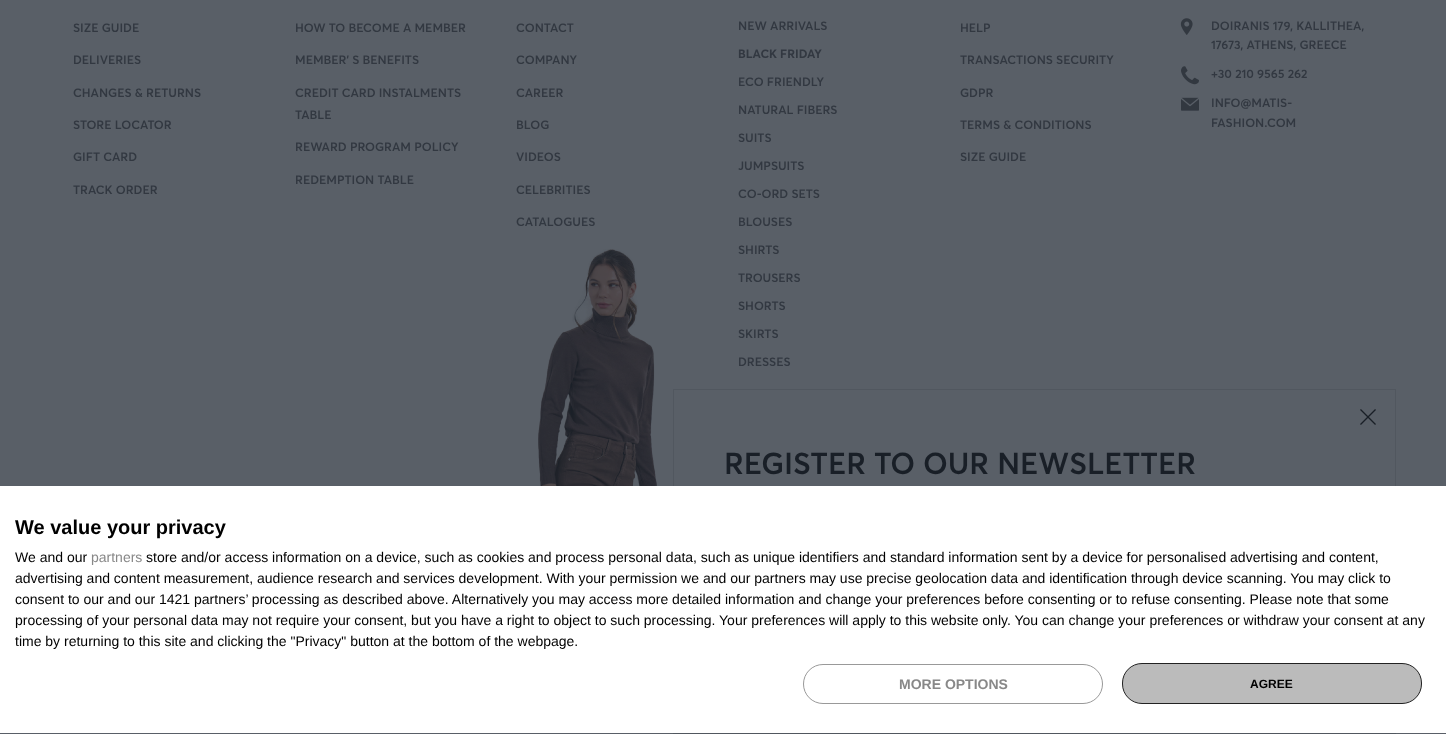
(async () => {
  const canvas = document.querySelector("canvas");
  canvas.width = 1446;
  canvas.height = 734;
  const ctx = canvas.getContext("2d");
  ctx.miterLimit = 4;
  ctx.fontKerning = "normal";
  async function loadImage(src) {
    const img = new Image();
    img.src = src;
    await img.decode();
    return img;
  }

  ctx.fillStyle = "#595f67";
  ctx.fillRect(0, 0, 1446, 734);
  ctx.drawImage(await loadImage("img/1.png"), 1180, 18, 13, 17);
  ctx.drawImage(await loadImage("img/2.png"), 1181, 66, 18, 19);
  ctx.drawImage(await loadImage("img/3.png"), 1181, 97, 18, 14);
  ctx.strokeStyle = "#51575f";
  ctx.strokeRect(673.5, 389.5, 722, 344);
  ctx.drawImage(await loadImage("img/4.png"), 538, 249, 119, 237);
  ctx.drawImage(await loadImage("img/5.png"), 1360, 409, 16, 16);
  ctx.fillStyle = "#ffffff";
  ctx.fillRect(0, 486, 1446, 247);
  ctx.beginPath();
  ctx.roundRect(803.5, 664.5, 299, 39, 19.5);
  ctx.strokeStyle = "#999999";
  ctx.stroke();
  ctx.fillStyle = "#bbbbbb";
  ctx.beginPath();
  ctx.roundRect(1122.5, 663.5, 299, 40, 19.5);
  ctx.fill();
  ctx.strokeStyle = "#222222";
  ctx.stroke();
  ctx.font = "600 12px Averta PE";
  ctx.fillStyle = "#323841";
  for (const [text, x, y] of [
    ["SIZE GUIDE", 73, 32],
    ["DELIVERIES", 73, 64],
    ["CHANGES & RETURNS", 73, 97],
    ["STORE LOCATOR", 73, 129],
    ["GIFT CARD", 73, 161],
    ["TRACK ORDER", 73, 194],
    ["HOW TO BECOME A MEMBER", 295, 32],
    ["MEMBER' S BENEFITS", 295, 64],
    ["CREDIT CARD INSTALMENTS", 295, 97],
    ["TABLE", 295, 119],
    ["REWARD PROGRAM POLICY", 295, 151],
    ["REDEMPTION TABLE", 295, 184],
    ["CONTACT", 516, 32],
    ["COMPANY", 516, 64],
    ["CAREER", 516, 97],
    ["BLOG", 516, 129],
    ["VIDEOS", 516, 161],
    ["CELEBRITIES", 516, 194],
    ["CATALOGUES", 516, 226],
    ["NEW ARRIVALS", 738, 30],
  ]) {
    ctx.fillText(text, x, y);
  }
  ctx.font = "bold 12px Averta PE";
  ctx.fillText("BLACK FRIDAY", 738, 58);
  ctx.font = "600 12px Averta PE";
  for (const [text, x, y] of [
    ["ECO FRIENDLY", 738, 86],
    ["NATURAL FIBERS", 738, 114],
    ["SUITS", 738, 142],
    ["JUMPSUITS", 738, 170],
    ["CO-ORD SETS", 738, 198],
    ["BLOUSES", 738, 226],
    ["SHIRTS", 738, 254],
    ["TROUSERS", 738, 282],
    ["SHORTS", 738, 310],
    ["SKIRTS", 738, 338],
    ["DRESSES", 738, 366],
    ["HELP", 960, 32],
    ["TRANSACTIONS SECURITY", 960, 64],
    ["GDPR", 960, 97],
    ["TERMS & CONDITIONS", 960, 129],
    ["SIZE GUIDE", 960, 161],
    ["DOIRANIS 179, KALLITHEA,", 1211, 30],
    ["17673, ATHENS, GREECE", 1211, 49],
    ["+30 210 9565 262", 1211, 78],
    ["INFO@MATIS-", 1211, 107],
    ["FASHION.COM", 1211, 127],
  ]) {
    ctx.fillText(text, x, y);
  }
  ctx.font = "600 30px Averta PE";
  ctx.fillStyle = "#191f27";
  ctx.fillText("REGISTER TO OUR NEWSLETTER", 724, 474);
  ctx.font = "bold 20px Liberation Sans";
  ctx.fillStyle = "#000000";
  ctx.fillText("We value your privacy", 15, 534);
  ctx.font = "14px Liberation Sans";
  ctx.fillText("We and our", 15, 562);
  ctx.fillStyle = "#888888";
  ctx.fillText("partners", 91, 562);
  ctx.fillStyle = "#000000";
  for (const [text, x, y] of [
    ["store and/or access information on a device, such as cookies and process personal data, such as unique identifiers and standard information sent by a device for personalised advertising and content,", 146, 562],
    ["advertising and content measurement, audience research and services development. With your permission we and our partners may use precise geolocation data and identification through device scanning. You may click to", 15, 583],
    ["consent to our and our 1421 partners’ processing as described above. Alternatively you may access more detailed information and change your preferences before consenting or to refuse consenting. Please note that some", 15, 604],
    ["processing of your personal data may not require your consent, but you have a right to object to such processing. Your preferences will apply to this website only. You can change your preferences or withdraw your consent at any", 15, 625],
    ["time by returning to this site and clicking the \"Privacy\" button at the bottom of the webpage.", 15, 646],
  ]) {
    ctx.fillText(text, x, y);
  }
  ctx.font = "bold 14px Liberation Sans";
  ctx.fillStyle = "#888888";
  ctx.fillText("MORE OPTIONS", 899, 689);
  ctx.font = "bold 12px Liberation Sans";
  ctx.fillStyle = "#000000";
  ctx.fillText("AGREE", 1250, 688);
})();
